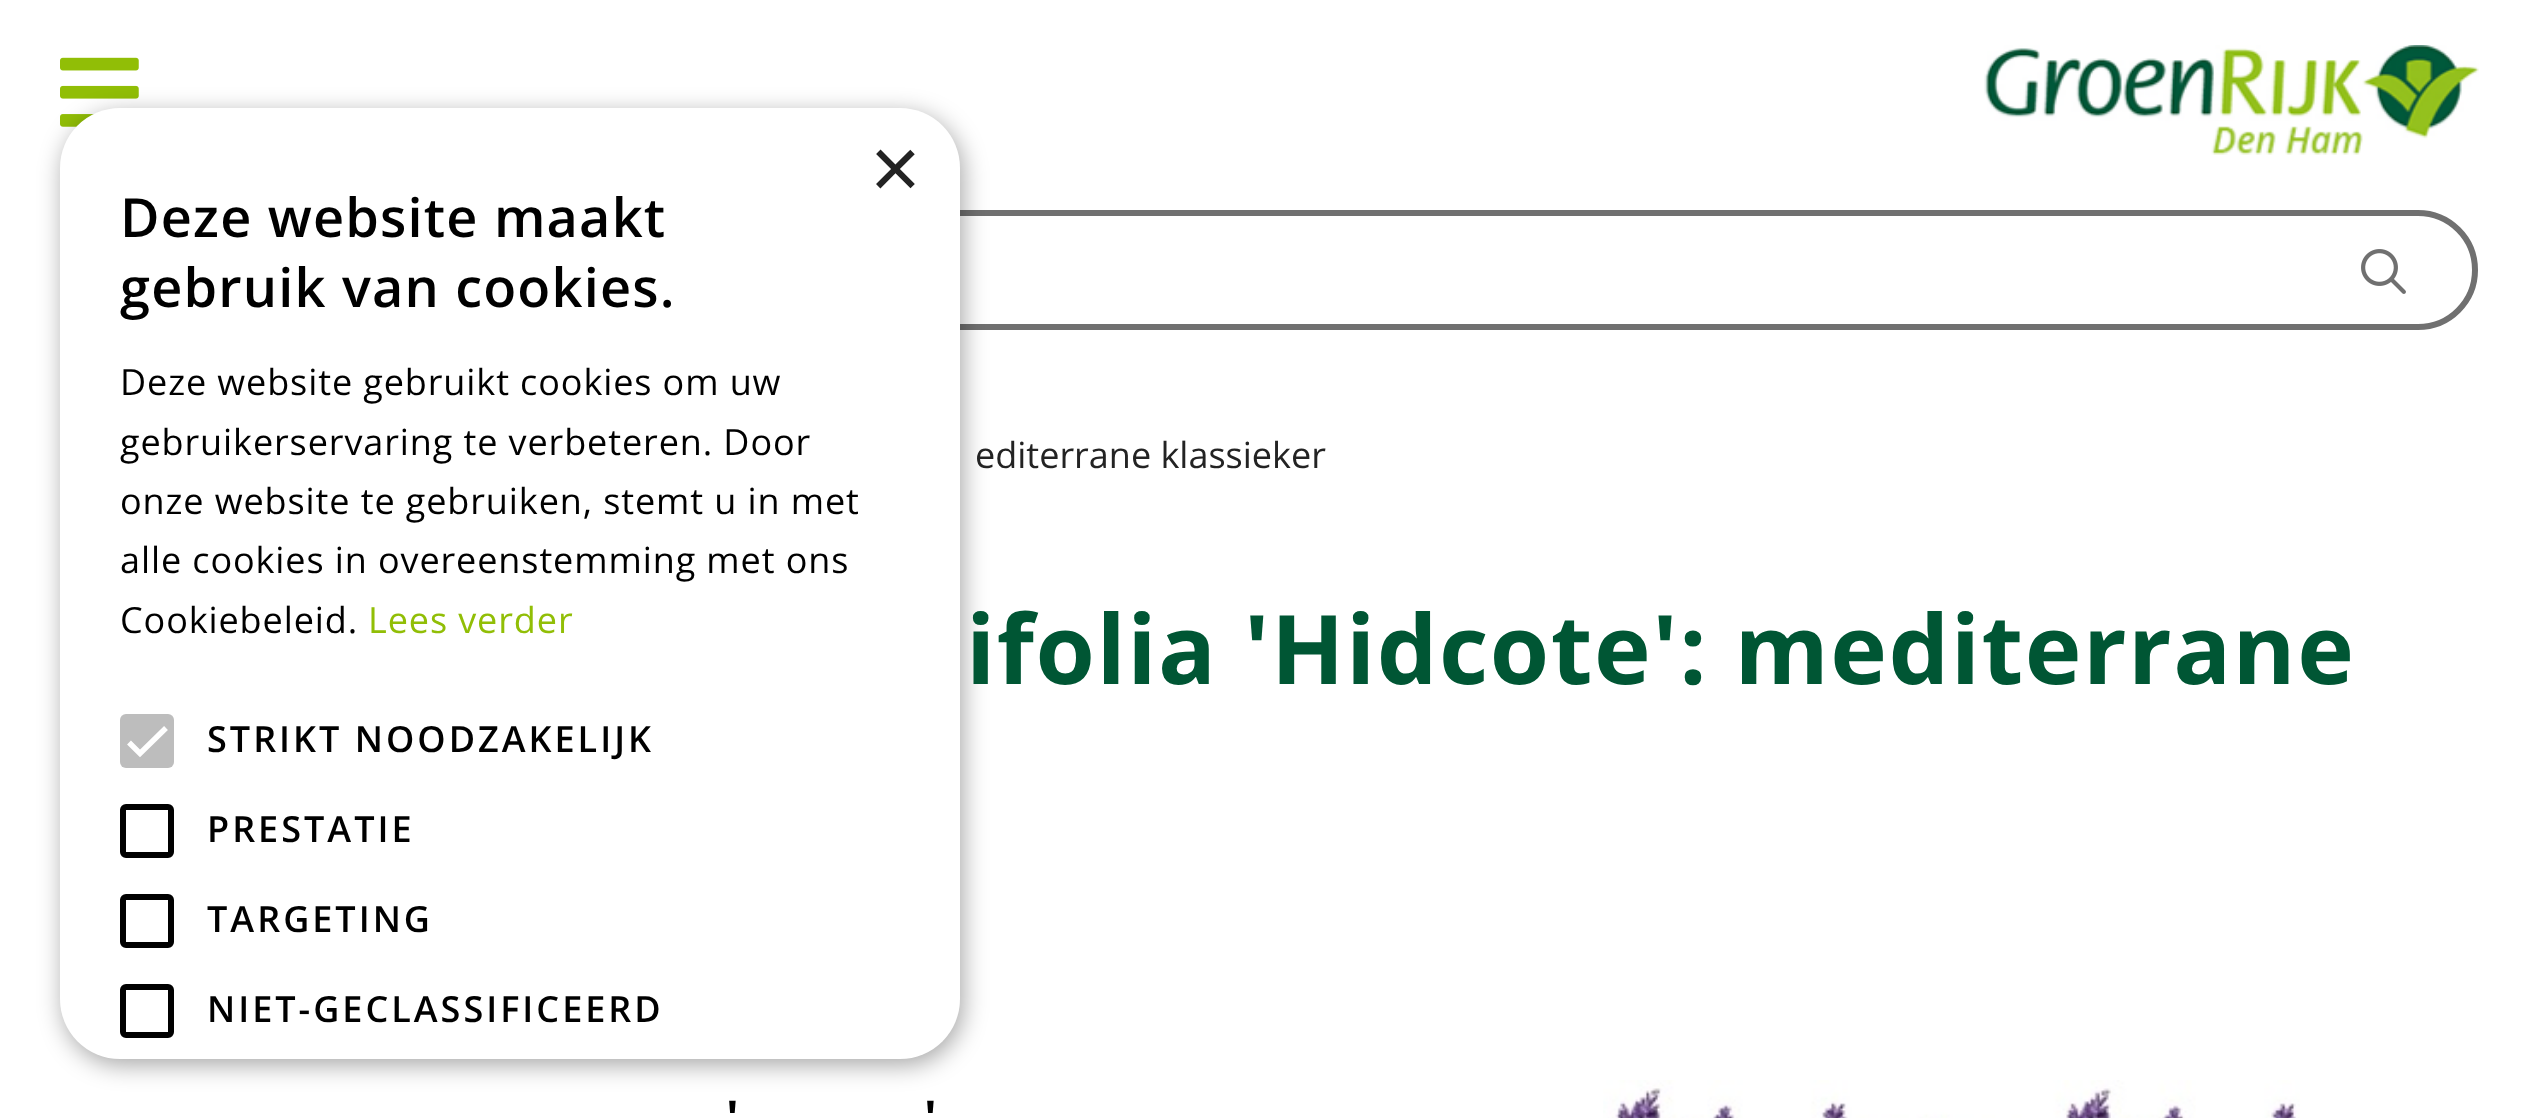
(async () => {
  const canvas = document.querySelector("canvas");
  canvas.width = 2536;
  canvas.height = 1118;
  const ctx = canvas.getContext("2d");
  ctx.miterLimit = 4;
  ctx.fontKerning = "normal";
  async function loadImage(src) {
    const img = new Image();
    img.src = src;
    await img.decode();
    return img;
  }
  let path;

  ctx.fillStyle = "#ffffff";
  ctx.fillRect(0, 0, 2536, 1118);
  ctx.drawImage(await loadImage("img/1.png"), 60, 57, 79, 70);
  ctx.beginPath();
  ctx.roundRect(63, 213, 2412, 114, 57);
  ctx.strokeStyle = "#707070";
  ctx.lineWidth = 6;
  ctx.stroke();
  ctx.fillStyle = "rgba(0, 0, 0, 0.35)";
  ctx.filter = "blur(12px)";
  ctx.beginPath();
  ctx.roundRect(63, 114, 900, 951, 60);
  ctx.fill();
  ctx.filter = "none";
  ctx.fillStyle = "#ffffff";
  ctx.beginPath();
  ctx.roundRect(60, 108, 900, 951, 60);
  ctx.fill();
  ctx.fillStyle = "#bdbdbd";
  ctx.beginPath();
  ctx.roundRect(120, 714, 54, 54, 6);
  ctx.fill();
  path = new Path2D("M129 742.5L140 753.5L166 728");
  ctx.strokeStyle = "#ffffff";
  ctx.lineWidth = 5.5;
  ctx.stroke(path);
  ctx.beginPath();
  ctx.roundRect(123, 807, 48, 48, 3);
  ctx.strokeStyle = "#000000";
  ctx.lineWidth = 6;
  ctx.stroke();
  ctx.beginPath();
  ctx.roundRect(123, 897, 48, 48, 3);
  ctx.stroke();
  ctx.beginPath();
  ctx.roundRect(123, 987, 48, 48, 3);
  ctx.stroke();
  ctx.drawImage(await loadImage("img/2.png"), 1984, 45, 495, 110);
  ctx.drawImage(await loadImage("img/3.png"), 2361, 249, 45, 45);
  ctx.drawImage(await loadImage("img/4.png"), 1603, 1080, 697, 38);
  ctx.font = "87px Liberation Sans";
  ctx.fillStyle = "#232323";
  ctx.fillText("×", 870, 198);
  ctx.letterSpacing = "1.2px";
  ctx.font = "600 54px Open Sans";
  ctx.fillStyle = "#000000";
  ctx.fillText("Deze website maakt", 120, 237);
  ctx.fillText("gebruik van cookies.", 120, 307);
  ctx.letterSpacing = "0.9px";
  ctx.font = "36px Open Sans";
  for (const [text, x, y] of [
    ["Deze website gebruikt cookies om uw", 120, 395],
    ["gebruikerservaring te verbeteren. Door", 120, 455],
    ["onze website te gebruiken, stemt u in met", 120, 514],
    ["alle cookies in overeenstemming met ons", 120, 573],
    ["Cookiebeleid.", 120, 633],
  ]) {
    ctx.fillText(text, x, y);
  }
  ctx.fillStyle = "#91be06";
  ctx.fillText("Lees verder", 368, 633);
  ctx.letterSpacing = "3px";
  ctx.font = "600 36px Open Sans";
  ctx.fillStyle = "#000000";
  for (const [text, x, y] of [
    ["STRIKT NOODZAKELIJK", 207, 752],
    ["PRESTATIE", 207, 842],
    ["TARGETING", 207, 932],
    ["NIET-GECLASSIFICEERD", 207, 1022],
  ]) {
    ctx.fillText(text, x, y);
  }
  ctx.letterSpacing = "0px";
  ctx.font = "36px Open Sans";
  ctx.fillStyle = "#232323";
  ctx.fillText("editerrane klassieker", 975, 468);
  ctx.letterSpacing = "1.5px";
  ctx.font = "bold 96px Open Sans";
  ctx.fillStyle = "#005634";
  ctx.fillText("ifolia 'Hidcote': mediterrane", 966, 684);
  ctx.letterSpacing = "0px";
  ctx.font = "bold 48px Open Sans";
  ctx.fillStyle = "#000000";
  ctx.fillText("'", 726, 1135);
  ctx.fillText("'", 924, 1135);
})();
